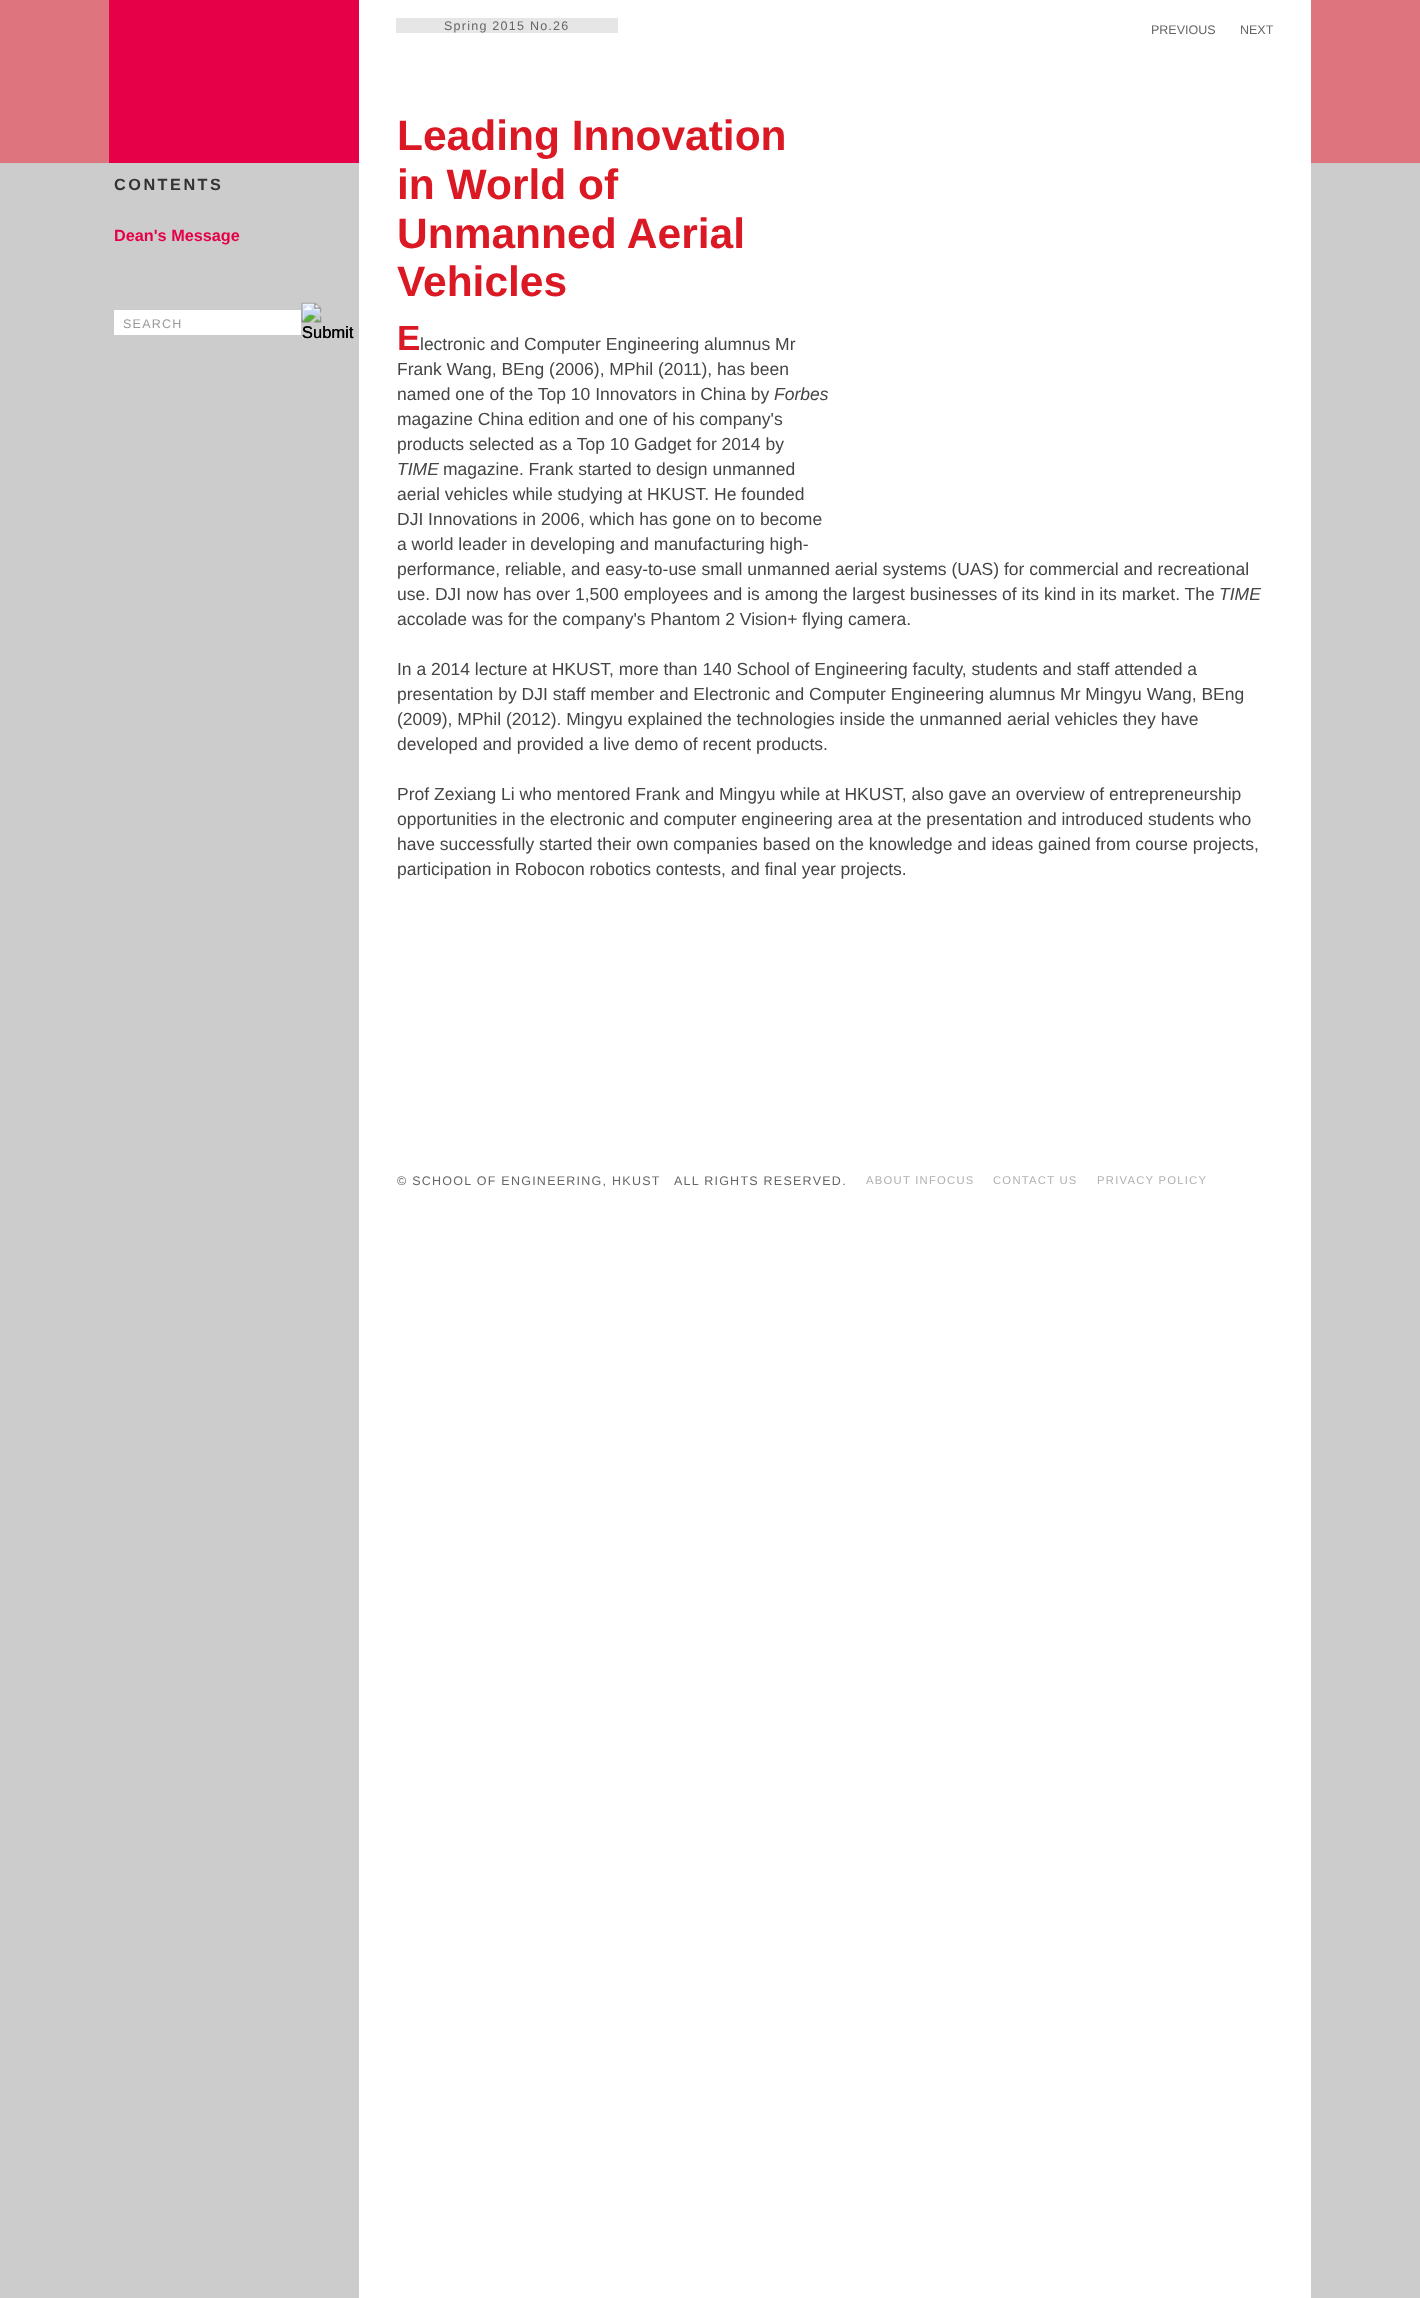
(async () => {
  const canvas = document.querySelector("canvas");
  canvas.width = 1420;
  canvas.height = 2298;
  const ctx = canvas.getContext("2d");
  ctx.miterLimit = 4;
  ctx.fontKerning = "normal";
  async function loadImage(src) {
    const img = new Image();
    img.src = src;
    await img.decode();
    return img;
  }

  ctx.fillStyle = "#cccccc";
  ctx.fillRect(0, 0, 1420, 2298);
  for (const [x, y, w, h, color] of [
    [0, 0, 109, 163, "#dd747e"],
    [109, 0, 250, 163, "#e60048"],
    [114, 310, 187, 25, "#ffffff"],
  ]) {
    ctx.fillStyle = color;
    ctx.fillRect(x, y, w, h);
  }
  ctx.drawImage(await loadImage("img/1.png"), 301, 302, 53, 36);
  for (const [x, y, w, h, color] of [
    [359, 0, 952, 2298, "#ffffff"],
    [396, 18, 222, 15, "#e6e6e6"],
    [1311, 0, 109, 163, "#dd747e"],
  ]) {
    ctx.fillStyle = color;
    ctx.fillRect(x, y, w, h);
  }
  ctx.letterSpacing = "2.5px";
  ctx.font = "bold 16.25px Liberation Sans";
  ctx.fillStyle = "#333333";
  ctx.fillText("CONTENTS", 114, 190);
  ctx.letterSpacing = "0px";
  ctx.fillStyle = "#e60048";
  ctx.fillText("Dean's Message", 114, 241);
  ctx.letterSpacing = "1.25px";
  ctx.font = "12.5px Liberation Sans";
  ctx.fillStyle = "#9a9a9a";
  ctx.fillText("SEARCH", 123, 328);
  ctx.letterSpacing = "0px";
  ctx.font = "16.5px Liberation Sans";
  ctx.fillStyle = "#000000";
  ctx.fillText("Submit", 302, 338);
  ctx.letterSpacing = "1.25px";
  ctx.font = "12.5px Liberation Sans";
  ctx.fillStyle = "#666666";
  ctx.fillText("Spring 2015 No.26", 444, 30);
  ctx.letterSpacing = "0px";
  ctx.fillText("PREVIOUS", 1151, 34);
  ctx.fillText("NEXT", 1240, 34);
  ctx.font = "bold 42.5px Liberation Sans";
  ctx.fillStyle = "#db1924";
  for (const [text, x, y] of [
    ["Leading Innovation", 397, 150],
    ["in World of", 397, 199],
    ["Unmanned Aerial", 397, 248],
    ["Vehicles", 397, 296],
  ]) {
    ctx.fillText(text, x, y);
  }
  ctx.font = "bold 35px Liberation Sans";
  ctx.fillText("E", 397, 350);
  ctx.font = "17.5px Liberation Sans";
  ctx.fillStyle = "#454545";
  for (const [text, x, y] of [
    ["lectronic and Computer Engineering alumnus Mr", 420, 350],
    ["Frank Wang, BEng (2006), MPhil (2011), has been", 397, 375],
    ["named one of the Top 10 Innovators in China by", 397, 400],
  ]) {
    ctx.fillText(text, x, y);
  }
  ctx.font = "italic 17.5px Liberation Sans";
  ctx.fillText("Forbes", 774, 400);
  ctx.font = "17.5px Liberation Sans";
  ctx.fillText("magazine China edition and one of his company's", 397, 425);
  ctx.fillText("products selected as a Top 10 Gadget for 2014 by", 397, 450);
  ctx.font = "italic 17.5px Liberation Sans";
  ctx.fillText("TIME", 397, 475);
  ctx.font = "17.5px Liberation Sans";
  for (const [text, x, y] of [
    ["magazine. Frank started to design unmanned", 443, 475],
    ["aerial vehicles while studying at HKUST. He founded", 397, 500],
    ["DJI Innovations in 2006, which has gone on to become", 397, 525],
    ["a world leader in developing and manufacturing high-", 397, 550],
    ["performance, reliable, and easy-to-use small unmanned aerial systems (UAS) for commercial and recreational", 397, 575],
    ["use. DJI now has over 1,500 employees and is among the largest businesses of its kind in its market. The", 397, 600],
  ]) {
    ctx.fillText(text, x, y);
  }
  ctx.font = "italic 17.5px Liberation Sans";
  ctx.fillText("TIME", 1219, 600);
  ctx.font = "17.5px Liberation Sans";
  for (const [text, x, y] of [
    ["accolade was for the company's Phantom 2 Vision+ flying camera.", 397, 625],
    ["In a 2014 lecture at HKUST, more than 140 School of Engineering faculty, students and staff attended a", 397, 675],
    ["presentation by DJI staff member and Electronic and Computer Engineering alumnus Mr Mingyu Wang, BEng", 397, 700],
    ["(2009), MPhil (2012). Mingyu explained the technologies inside the unmanned aerial vehicles they have", 397, 725],
    ["developed and provided a live demo of recent products.", 397, 750],
    ["Prof Zexiang Li who mentored Frank and Mingyu while at HKUST, also gave an overview of entrepreneurship", 397, 800],
    ["opportunities in the electronic and computer engineering area at the presentation and introduced students who", 397, 825],
    ["have successfully started their own companies based on the knowledge and ideas gained from course projects,", 397, 850],
    ["participation in Robocon robotics contests, and final year projects.", 397, 875],
  ]) {
    ctx.fillText(text, x, y);
  }
  ctx.letterSpacing = "1.25px";
  ctx.font = "12.5px Liberation Sans";
  ctx.fillStyle = "#666666";
  ctx.fillText("© SCHOOL OF ENGINEERING, HKUST   ALL RIGHTS RESERVED.", 397, 1185);
  ctx.font = "11.25px Liberation Sans";
  ctx.fillStyle = "#b0b0b0";
  for (const [text, x, y] of [
    ["ABOUT INFOCUS", 866, 1184],
    ["CONTACT US", 993, 1184],
    ["PRIVACY POLICY", 1097, 1184],
  ]) {
    ctx.fillText(text, x, y);
  }
})();
